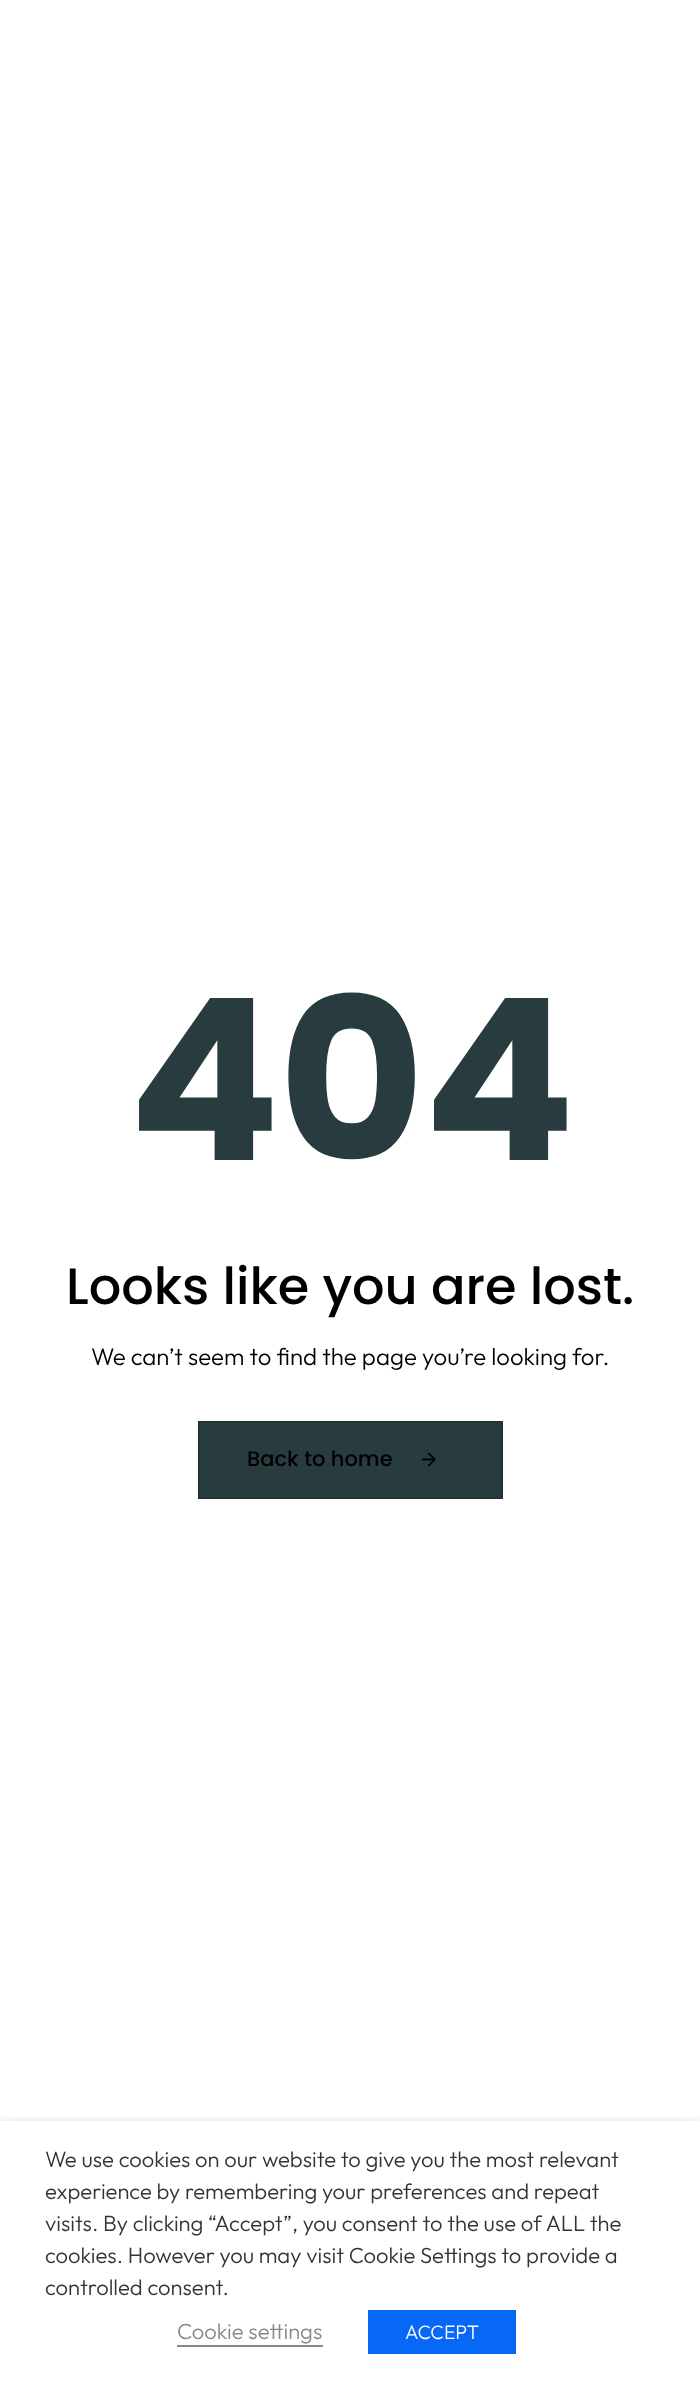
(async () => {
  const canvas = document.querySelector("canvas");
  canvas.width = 700;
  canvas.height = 2383;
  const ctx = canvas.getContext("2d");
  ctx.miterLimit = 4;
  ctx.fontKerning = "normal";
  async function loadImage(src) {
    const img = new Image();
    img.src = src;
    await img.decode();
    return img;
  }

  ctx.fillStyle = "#ffffff";
  ctx.fillRect(0, 0, 700, 2383);
  ctx.fillStyle = "#283b3f";
  ctx.beginPath();
  ctx.rect(199, 1422, 303, 76);
  ctx.fill();
  ctx.strokeStyle = "#223236";
  ctx.lineWidth = 2;
  ctx.stroke();
  ctx.drawImage(await loadImage("img/1.png"), 422, 1452, 14, 15);
  ctx.save();
  ctx.beginPath();
  ctx.rect(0, 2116, 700, 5);
  ctx.clip();
  ctx.fillStyle = "rgba(0, 0, 0, 0.5)";
  ctx.filter = "blur(7.5px)";
  ctx.beginPath();
  ctx.rect(0, 2129, 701, 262);
  ctx.fill();
  ctx.filter = "none";
  ctx.restore();
  ctx.fillStyle = "#898888";
  ctx.fillRect(177, 2345, 146, 2);
  ctx.fillStyle = "#0767f6";
  ctx.fillRect(368, 2310, 148, 44);
  ctx.letterSpacing = "-2px";
  ctx.font = "bold 225px Poppins";
  ctx.fillStyle = "#283b3f";
  ctx.fillText("404", 128, 1160);
  ctx.letterSpacing = "0px";
  ctx.font = "500 51px Poppins";
  ctx.fillStyle = "#000000";
  ctx.fillText("Looks like you are lost.", 66, 1304);
  ctx.font = "300 24px Outfit";
  ctx.fillText("We can’t seem to find the page you’re looking for.", 91, 1365);
  ctx.font = "500 21px Poppins";
  ctx.fillText("Back to home", 247, 1466);
  ctx.font = "300 22px Outfit";
  ctx.fillStyle = "#333333";
  for (const [text, x, y] of [
    ["We use cookies on our website to give you the most relevant", 45, 2167],
    ["experience by remembering your preferences and repeat", 45, 2199],
    ["visits. By clicking “Accept”, you consent to the use of ALL the", 45, 2231],
    ["cookies. However you may visit Cookie Settings to provide a", 45, 2263],
    ["controlled consent.", 45, 2295],
  ]) {
    ctx.fillText(text, x, y);
  }
  ctx.fillStyle = "#898888";
  ctx.fillText("Cookie settings", 177, 2339);
  ctx.font = "300 19.5px Outfit";
  ctx.fillStyle = "#ffffff";
  ctx.fillText("ACCEPT", 405, 2339);
})();
